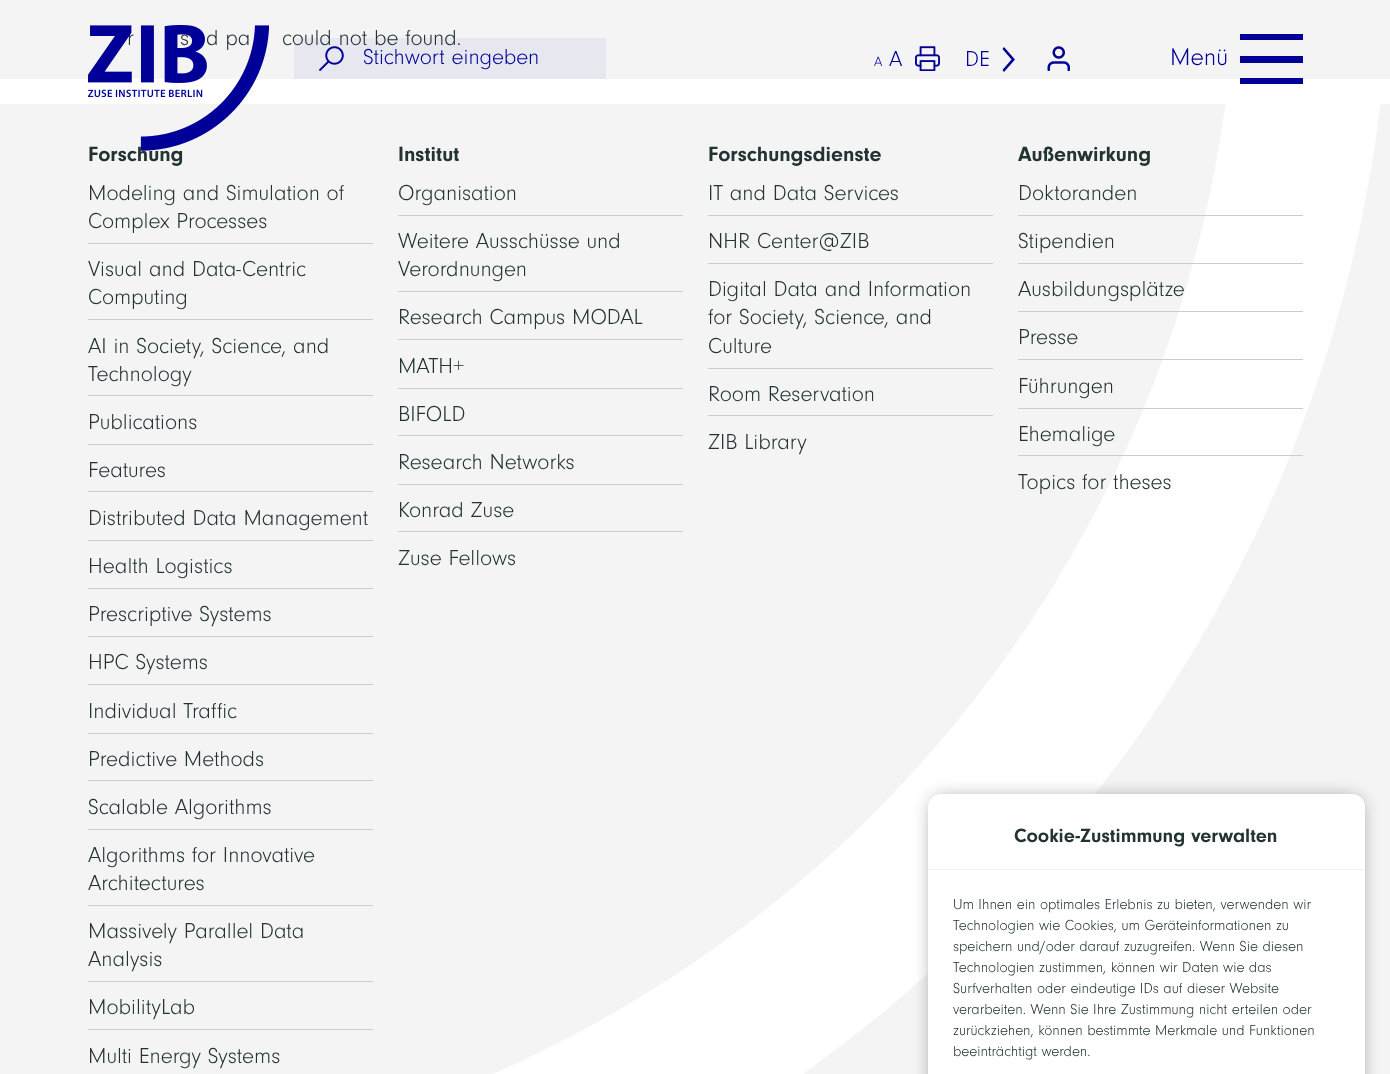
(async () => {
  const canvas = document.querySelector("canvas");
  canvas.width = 1390;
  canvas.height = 1074;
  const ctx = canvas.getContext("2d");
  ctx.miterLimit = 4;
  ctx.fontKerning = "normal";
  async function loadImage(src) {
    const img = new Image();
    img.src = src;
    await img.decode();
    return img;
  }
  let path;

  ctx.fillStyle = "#ffffff";
  ctx.fillRect(0, 0, 1390, 1074);
  ctx.fillStyle = "#f4f4f4";
  ctx.fillRect(0, 0, 1390, 79);
  ctx.fillStyle = "rgba(0, 0, 153, 0.05)";
  ctx.fillRect(294, 38, 312, 41);
  ctx.drawImage(await loadImage("img/2.png"), 319, 46, 25, 25);
  ctx.drawImage(await loadImage("img/3.png"), 915, 46, 25, 25);
  ctx.fillStyle = "#000099";
  path = new Path2D("M1004 47L1002.5 49L1011.5 59.5L1002.5 70L1004 72L1015 59.5Z");
  ctx.fill(path);
  ctx.drawImage(await loadImage("img/4.png"), 1047, 46, 23, 25);
  for (const [x, y, w, h, color] of [
    [1240, 34, 63, 6, "#000099"],
    [1240, 56, 63, 7, "#000099"],
    [1240, 78, 63, 6, "#000099"],
    [0, 104, 1390, 970, "#f4f4f4"],
  ]) {
    ctx.fillStyle = color;
    ctx.fillRect(x, y, w, h);
  }
  ctx.save();
  ctx.beginPath();
  ctx.rect(0, 104, 1390, 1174);
  ctx.clip();
  ctx.fillStyle = "#ffffff";
  path = new Path2D("M1236-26H1390C1369 728 754 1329 0 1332V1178C669 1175 1216 643 1236-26Z");
  ctx.fill(path);
  ctx.restore();
  for (const [x, y, w, h, color] of [
    [88, 243, 285, 1, "#cccccc"],
    [88, 319, 285, 1, "#cccccc"],
    [88, 395, 285, 1, "#cccccc"],
    [88, 444, 285, 1, "#cccccc"],
    [88, 491, 285, 1, "#cccccc"],
    [88, 540, 285, 1, "#cccccc"],
    [88, 588, 285, 1, "#cccccc"],
    [88, 636, 285, 1, "#cccccc"],
    [88, 684, 285, 1, "#cccccc"],
    [88, 733, 285, 1, "#cccccc"],
    [88, 780, 285, 1, "#cccccc"],
    [88, 829, 285, 1, "#cccccc"],
    [88, 905, 285, 1, "#cccccc"],
    [88, 981, 285, 1, "#cccccc"],
    [88, 1029, 285, 1, "#cccccc"],
    [398, 215, 285, 1, "#cccccc"],
    [398, 291, 285, 1, "#cccccc"],
    [398, 339, 285, 1, "#cccccc"],
    [398, 388, 285, 1, "#cccccc"],
    [398, 435, 285, 1, "#cccccc"],
    [398, 484, 285, 1, "#cccccc"],
    [398, 531, 285, 1, "#cccccc"],
    [708, 215, 285, 1, "#cccccc"],
    [708, 263, 285, 1, "#cccccc"],
    [708, 368, 285, 1, "#cccccc"],
    [708, 415, 285, 1, "#cccccc"],
    [1018, 215, 285, 1, "#cccccc"],
    [1018, 263, 285, 1, "#cccccc"],
    [1018, 311, 285, 1, "#cccccc"],
    [1018, 359, 285, 1, "#cccccc"],
    [1018, 408, 285, 1, "#cccccc"],
    [1018, 455, 285, 1, "#cccccc"],
  ]) {
    ctx.fillStyle = color;
    ctx.fillRect(x, y, w, h);
  }
  ctx.fillStyle = "rgba(0, 0, 0, 0.5)";
  ctx.filter = "blur(9.5px)";
  ctx.beginPath();
  ctx.roundRect(934, 800, 425, 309, 6);
  ctx.fill();
  ctx.filter = "none";
  ctx.fillStyle = "#ffffff";
  ctx.beginPath();
  ctx.roundRect(928, 794, 437, 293, 13);
  ctx.fill();
  ctx.fillStyle = "#f2f2f2";
  ctx.fillRect(928, 869, 437, 1);
  ctx.font = "22.5px 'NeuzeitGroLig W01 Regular'";
  ctx.fillStyle = "#233333";
  for (const [text, x, y] of [
    ["r", 127, 45],
    ["s", 180, 45],
    ["d pa", 206, 45],
    ["could not be found.", 282, 45],
  ]) {
    ctx.fillText(text, x, y);
  }
  ctx.fillStyle = "#000099";
  ctx.fillText("Stichwort eingeben", 363, 64);
  ctx.font = "14px 'NeuzeitGroLig W01 Regular'";
  ctx.fillText("A", 874, 66);
  ctx.font = "22.5px 'NeuzeitGroLig W01 Regular'";
  ctx.fillText("A", 889, 66);
  ctx.fillText("DE", 965, 66);
  ctx.font = "25px 'NeuzeitGroLig W01 Regular'";
  ctx.fillText("Menü", 1170, 65);
  ctx.font = "bold 21.5px 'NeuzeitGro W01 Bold'";
  ctx.fillStyle = "#233333";
  ctx.fillText("Forschung", 88, 161);
  ctx.drawImage(await loadImage("img/1.png"), 88, 25, 181, 126);
  ctx.font = "22.5px 'NeuzeitGroLig W01 Regular'";
  for (const [text, x, y] of [
    ["Modeling and Simulation of", 88, 200],
    ["Complex Processes", 88, 228],
    ["Visual and Data-Centric", 88, 276],
    ["Computing", 88, 304],
    ["AI in Society, Science, and", 88, 353],
    ["Technology", 88, 381],
    ["Publications", 88, 429],
    ["Features", 88, 477],
    ["Distributed Data Management", 88, 525],
    ["Health Logistics", 88, 573],
    ["Prescriptive Systems", 88, 621],
    ["HPC Systems", 88, 669],
    ["Individual Traffic", 88, 718],
    ["Predictive Methods", 88, 766],
    ["Scalable Algorithms", 88, 814],
    ["Algorithms for Innovative", 88, 862],
    ["Architectures", 88, 890],
    ["Massively Parallel Data", 88, 938],
    ["Analysis", 88, 966],
    ["MobilityLab", 88, 1014],
    ["Multi Energy Systems", 88, 1063],
  ]) {
    ctx.fillText(text, x, y);
  }
  ctx.font = "bold 21.5px 'NeuzeitGro W01 Bold'";
  ctx.fillText("Institut", 398, 161);
  ctx.font = "22.5px 'NeuzeitGroLig W01 Regular'";
  for (const [text, x, y] of [
    ["Organisation", 398, 200],
    ["Weitere Ausschüsse und", 398, 248],
    ["Verordnungen", 398, 276],
    ["Research Campus MODAL", 398, 324],
    ["MATH+", 398, 373],
    ["BIFOLD", 398, 421],
    ["Research Networks", 398, 469],
    ["Konrad Zuse", 398, 517],
    ["Zuse Fellows", 398, 565],
  ]) {
    ctx.fillText(text, x, y);
  }
  ctx.font = "bold 21.5px 'NeuzeitGro W01 Bold'";
  ctx.fillText("Forschungsdienste", 708, 161);
  ctx.font = "22.5px 'NeuzeitGroLig W01 Regular'";
  for (const [text, x, y] of [
    ["IT and Data Services", 708, 200],
    ["NHR Center@ZIB", 708, 248],
    ["Digital Data and Information", 708, 296],
    ["for Society, Science, and", 708, 324],
    ["Culture", 708, 353],
    ["Room Reservation", 708, 401],
    ["ZIB Library", 708, 449],
  ]) {
    ctx.fillText(text, x, y);
  }
  ctx.font = "bold 21.5px 'NeuzeitGro W01 Bold'";
  ctx.fillText("Außenwirkung", 1018, 161);
  ctx.font = "22.5px 'NeuzeitGroLig W01 Regular'";
  for (const [text, x, y] of [
    ["Doktoranden", 1018, 200],
    ["Stipendien", 1018, 248],
    ["Ausbildungsplätze", 1018, 296],
    ["Presse", 1018, 344],
    ["Führungen", 1018, 393],
    ["Ehemalige", 1018, 441],
    ["Topics for theses", 1018, 489],
  ]) {
    ctx.fillText(text, x, y);
  }
  ctx.font = "bold 20px 'NeuzeitGro W01 Bold'";
  ctx.fillText("Cookie-Zustimmung verwalten", 1014, 842);
  ctx.font = "15px 'NeuzeitGroLig W01 Regular'";
  for (const [text, x, y] of [
    ["Um Ihnen ein optimales Erlebnis zu bieten, verwenden wir", 953, 909],
    ["Technologien wie Cookies, um Geräteinformationen zu", 953, 930],
    ["speichern und/oder darauf zuzugreifen. Wenn Sie diesen", 953, 951],
    ["Technologien zustimmen, können wir Daten wie das", 953, 972],
    ["Surfverhalten oder eindeutige IDs auf dieser Website", 953, 993],
    ["verarbeiten. Wenn Sie Ihre Zustimmung nicht erteilen oder", 953, 1014],
    ["zurückziehen, können bestimmte Merkmale und Funktionen", 953, 1035],
    ["beeinträchtigt werden.", 953, 1056],
  ]) {
    ctx.fillText(text, x, y);
  }
})();
